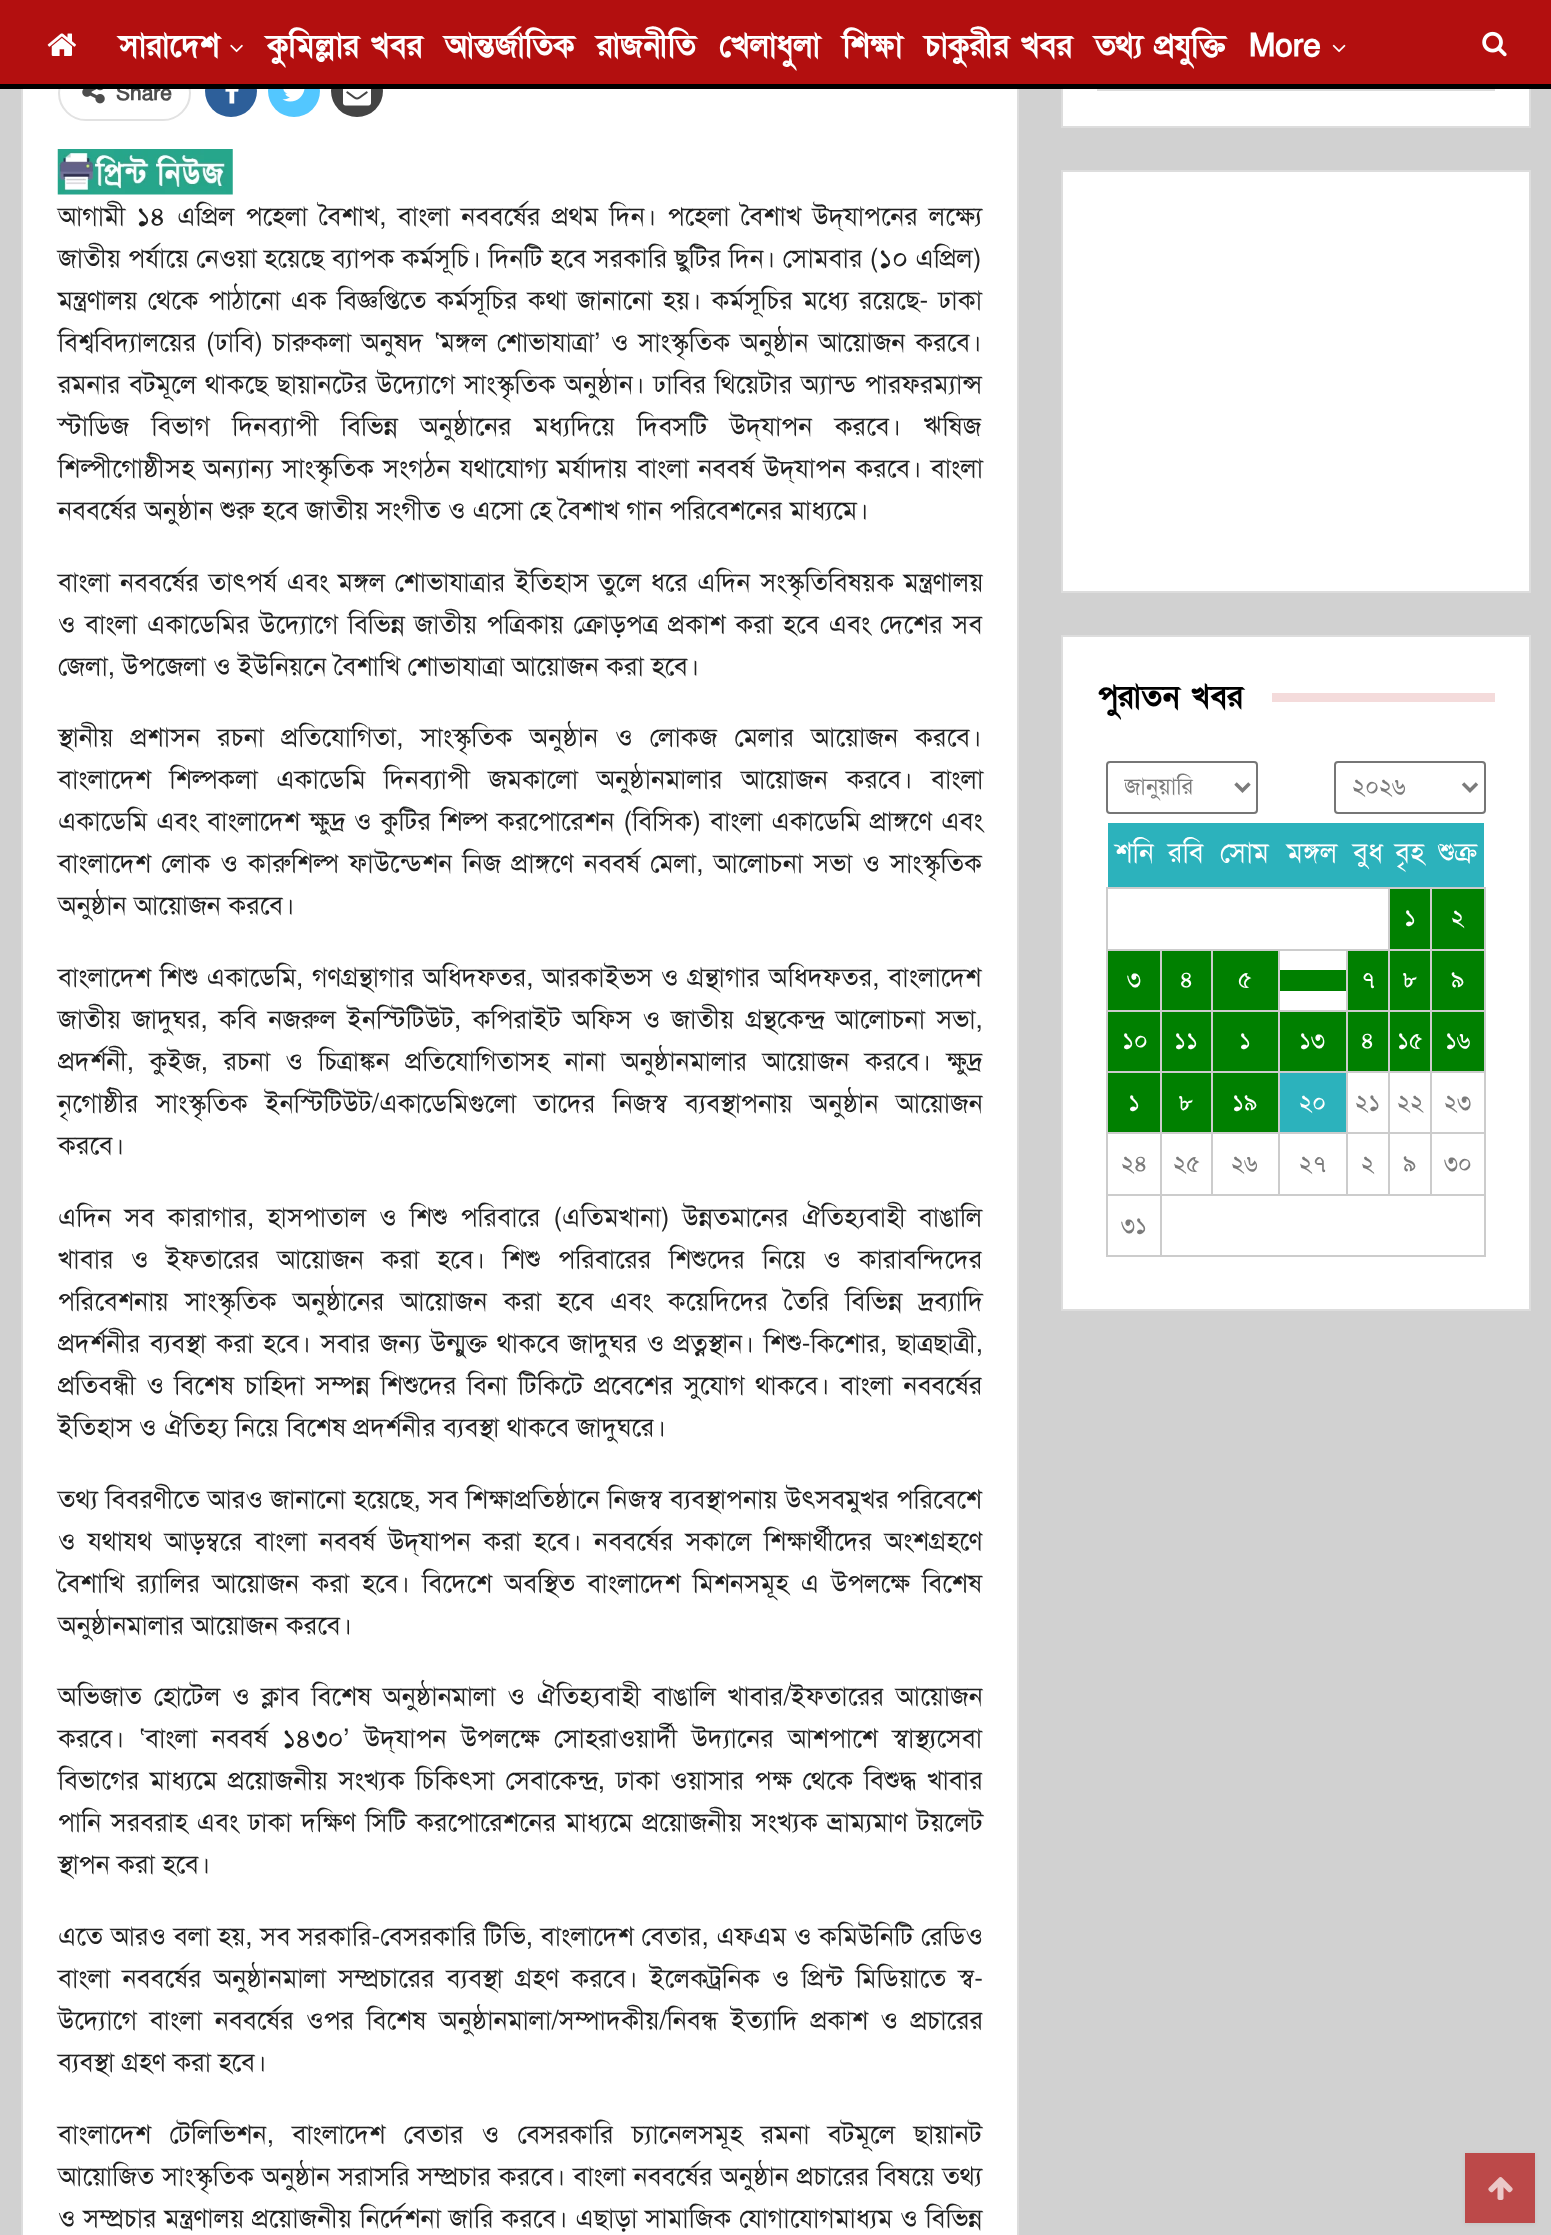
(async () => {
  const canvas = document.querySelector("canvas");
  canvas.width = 1551;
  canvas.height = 2235;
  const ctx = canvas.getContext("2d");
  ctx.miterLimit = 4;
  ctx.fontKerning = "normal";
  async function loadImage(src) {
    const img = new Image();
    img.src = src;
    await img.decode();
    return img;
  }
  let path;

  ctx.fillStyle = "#d1d1d1";
  ctx.fillRect(0, 0, 1551, 2235);
  ctx.fillStyle = "#ffffff";
  ctx.fillRect(23, 89, 994, 2146);
  ctx.strokeStyle = "#dddddd";
  ctx.lineWidth = 2;
  ctx.strokeRect(22, -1, 996, 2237);
  ctx.beginPath();
  ctx.roundRect(59, 66, 131, 54, 27);
  ctx.strokeStyle = "#e2e2e2";
  ctx.stroke();
  ctx.fillStyle = "#2d5f9a";
  ctx.beginPath();
  ctx.arc(231, 91, 26, 0, Math.PI * 2);
  ctx.fill();
  ctx.fillStyle = "#53c7ff";
  ctx.beginPath();
  ctx.arc(294, 91, 26, 0, Math.PI * 2);
  ctx.fill();
  ctx.fillStyle = "#444444";
  ctx.beginPath();
  ctx.arc(357, 91, 26, 0, Math.PI * 2);
  ctx.fill();
  ctx.fillStyle = "#ffffff";
  ctx.fillRect(1063, 89, 466, 37);
  ctx.strokeStyle = "#dddddd";
  ctx.strokeRect(1062, -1, 468, 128);
  ctx.strokeRect(1098, -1, 396, 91);
  ctx.fillStyle = "#b30f0f";
  ctx.fillRect(0, 0, 1551, 84);
  ctx.drawImage(await loadImage("img/1.png"), 47, 33, 29, 23);
  ctx.drawImage(await loadImage("img/2.png"), 230, 44, 13, 9);
  ctx.drawImage(await loadImage("img/3.png"), 1332, 44, 14, 9);
  ctx.drawImage(await loadImage("img/4.png"), 1482, 31, 25, 26);
  ctx.drawImage(await loadImage("img/5.png"), 82, 89, 23, 15);
  ctx.drawImage(await loadImage("img/6.png"), 225, 89, 14, 15);
  ctx.drawImage(await loadImage("img/7.png"), 282, 89, 23, 13);
  ctx.drawImage(await loadImage("img/8.png"), 343, 89, 28, 17);
  ctx.drawImage(await loadImage("img/9.png"), 57, 149, 176, 46);
  ctx.fillStyle = "#ffffff";
  ctx.beginPath();
  ctx.rect(1062, 171, 468, 421);
  ctx.fill();
  ctx.stroke();
  ctx.beginPath();
  ctx.rect(1062, 636, 468, 674);
  ctx.fill();
  ctx.stroke();
  ctx.fillStyle = "#f4dbdb";
  ctx.fillRect(1272, 693, 223, 9);
  ctx.beginPath();
  ctx.roundRect(1107, 762, 150, 51, 3);
  ctx.strokeStyle = "#767676";
  ctx.stroke();
  path = new Path2D("M1235.5 783.5L1242.5 790.5L1249.5 783.5");
  ctx.strokeStyle = "#7b7b7b";
  ctx.lineWidth = 3.5;
  ctx.stroke(path);
  ctx.beginPath();
  ctx.roundRect(1335, 762, 150, 51, 3);
  ctx.strokeStyle = "#767676";
  ctx.lineWidth = 2;
  ctx.stroke();
  path = new Path2D("M1463 783.5L1470 790.5L1477 783.5");
  ctx.strokeStyle = "#7b7b7b";
  ctx.lineWidth = 3.5;
  ctx.stroke(path);
  for (const [x, y, w, h, color] of [
    [1108, 823, 376, 64, "#2cb2bc"],
    [1430, 887, 56, 2, "#cccccc"],
    [1430, 949, 56, 2, "#cccccc"],
    [1430, 1010, 56, 2, "#cccccc"],
    [1430, 1071, 56, 2, "#cccccc"],
    [1430, 1132, 56, 2, "#cccccc"],
    [1160, 1194, 326, 2, "#cccccc"],
    [1430, 1132, 2, 63, "#cccccc"],
    [1388, 1132, 44, 2, "#cccccc"],
    [1430, 1071, 2, 63, "#cccccc"],
    [1388, 1071, 44, 2, "#cccccc"],
    [1430, 1010, 2, 63, "#cccccc"],
    [1388, 1010, 44, 2, "#cccccc"],
    [1430, 949, 2, 63, "#cccccc"],
    [1388, 949, 44, 2, "#cccccc"],
    [1430, 887, 2, 63, "#cccccc"],
    [1388, 887, 44, 2, "#cccccc"],
    [1388, 1132, 2, 63, "#cccccc"],
    [1346, 1132, 44, 2, "#cccccc"],
    [1388, 1071, 2, 63, "#cccccc"],
    [1346, 1071, 44, 2, "#cccccc"],
    [1388, 1010, 2, 63, "#cccccc"],
    [1346, 1010, 44, 2, "#cccccc"],
    [1388, 949, 2, 63, "#cccccc"],
    [1346, 949, 44, 2, "#cccccc"],
    [1388, 887, 2, 63, "#cccccc"],
    [1106, 887, 284, 2, "#cccccc"],
    [1346, 1132, 2, 63, "#cccccc"],
    [1278, 1132, 70, 2, "#cccccc"],
    [1346, 1071, 2, 63, "#cccccc"],
    [1278, 1071, 70, 2, "#cccccc"],
    [1346, 1010, 2, 63, "#cccccc"],
    [1278, 1010, 70, 2, "#cccccc"],
    [1346, 949, 2, 63, "#cccccc"],
    [1278, 949, 70, 2, "#cccccc"],
    [1278, 1132, 2, 63, "#cccccc"],
    [1211, 1132, 68, 2, "#cccccc"],
    [1278, 1071, 2, 63, "#cccccc"],
    [1211, 1071, 68, 2, "#cccccc"],
    [1278, 1010, 2, 63, "#cccccc"],
    [1211, 1010, 68, 2, "#cccccc"],
    [1278, 949, 2, 63, "#cccccc"],
    [1211, 949, 68, 2, "#cccccc"],
    [1211, 1132, 2, 63, "#cccccc"],
    [1160, 1132, 53, 2, "#cccccc"],
    [1211, 1071, 2, 63, "#cccccc"],
    [1160, 1071, 53, 2, "#cccccc"],
    [1211, 1010, 2, 63, "#cccccc"],
    [1160, 1010, 53, 2, "#cccccc"],
    [1211, 949, 2, 63, "#cccccc"],
    [1160, 949, 53, 2, "#cccccc"],
    [1484, 1194, 2, 63, "#cccccc"],
    [1160, 1255, 326, 2, "#cccccc"],
    [1160, 1194, 2, 63, "#cccccc"],
    [1106, 1194, 56, 2, "#cccccc"],
    [1160, 1132, 2, 63, "#cccccc"],
    [1106, 1132, 56, 2, "#cccccc"],
    [1160, 1071, 2, 63, "#cccccc"],
    [1106, 1071, 56, 2, "#cccccc"],
    [1160, 1010, 2, 63, "#cccccc"],
    [1106, 1010, 56, 2, "#cccccc"],
    [1160, 949, 2, 63, "#cccccc"],
    [1106, 949, 56, 2, "#cccccc"],
    [1106, 1255, 56, 2, "#cccccc"],
    [1106, 1194, 2, 63, "#cccccc"],
    [1106, 1132, 2, 63, "#cccccc"],
    [1106, 1071, 2, 63, "#cccccc"],
    [1106, 1010, 2, 63, "#cccccc"],
    [1106, 949, 2, 63, "#cccccc"],
    [1106, 887, 2, 63, "#cccccc"],
    [1390, 889, 40, 60, "#008000"],
    [1484, 1132, 2, 63, "#cccccc"],
    [1484, 1071, 2, 63, "#cccccc"],
    [1484, 1010, 2, 63, "#cccccc"],
    [1484, 949, 2, 63, "#cccccc"],
    [1484, 887, 2, 63, "#cccccc"],
    [1432, 889, 52, 60, "#008000"],
    [1108, 951, 52, 59, "#008000"],
    [1162, 951, 49, 59, "#008000"],
    [1213, 951, 65, 59, "#008000"],
    [1280, 970, 66, 21, "#008000"],
    [1348, 951, 40, 59, "#008000"],
    [1390, 951, 40, 59, "#008000"],
    [1432, 951, 52, 59, "#008000"],
    [1108, 1012, 52, 59, "#008000"],
    [1162, 1012, 49, 59, "#008000"],
    [1213, 1012, 65, 59, "#008000"],
    [1280, 1012, 66, 59, "#008000"],
    [1348, 1012, 40, 59, "#008000"],
    [1390, 1012, 40, 59, "#008000"],
    [1432, 1012, 52, 59, "#008000"],
    [1108, 1073, 52, 59, "#008000"],
    [1162, 1073, 49, 59, "#008000"],
    [1213, 1073, 65, 59, "#008000"],
    [1280, 1073, 66, 59, "#2cb2bc"],
  ]) {
    ctx.fillStyle = color;
    ctx.fillRect(x, y, w, h);
  }
  ctx.fillStyle = "rgba(63, 63, 63, 0.09)";
  ctx.filter = "blur(2px)";
  ctx.beginPath();
  ctx.rect(1465, 2154, 70, 70);
  ctx.fill();
  ctx.filter = "none";
  ctx.fillStyle = "#bc4949";
  ctx.fillRect(1465, 2153, 70, 70);
  ctx.drawImage(await loadImage("img/10.png"), 1488, 2177, 25, 23);
  ctx.font = "bold 31.5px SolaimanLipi";
  ctx.fillStyle = "#ffffff";
  for (const [text, x, y] of [
    ["সারাদেশ", 119, 56],
    ["কুমিল্লার খবর", 267, 56],
    ["আন্তর্জাতিক", 445, 56],
    ["রাজনীতি", 597, 56],
    ["খেলাধুলা", 719, 56],
    ["শিক্ষা", 843, 56],
    ["চাকুরীর খবর", 925, 56],
    ["তথ্য প্রযুক্তি", 1095, 56],
    ["More", 1249, 56],
  ]) {
    ctx.fillText(text, x, y);
  }
  ctx.font = "bold 21px SolaimanLipi";
  ctx.fillStyle = "#4d4d4d";
  ctx.fillText("Share", 116, 100);
  ctx.fillStyle = "#000000";
  ctx.fillRect(0, 84, 1551, 5);
  ctx.wordSpacing = "3.9px";
  ctx.font = "26.25px SolaimanLipi";
  ctx.fillStyle = "#222222";
  ctx.fillText("আগামী ১৪ এপ্রিল পহেলা বৈশাখ, বাংলা নববর্ষের প্রথম দিন। পহেলা বৈশাখ উদ্‌যাপনের লক্ষ্যে", 58, 225);
  ctx.wordSpacing = "0px";
  ctx.fillText("জাতীয় পর্যায়ে নেওয়া হয়েছে ব্যাপক কর্মসূচি। দিনটি হবে সরকারি ছুটির দিন। সোমবার (১০ এপ্রিল)", 58, 267);
  ctx.wordSpacing = "2.75px";
  ctx.fillText("মন্ত্রণালয় থেকে পাঠানো এক বিজ্ঞপ্তিতে কর্মসূচির কথা জানানো হয়। কর্মসূচির মধ্যে রয়েছে- ঢাকা", 58, 309);
  ctx.wordSpacing = "2.5px";
  ctx.fillText("বিশ্ববিদ্যালয়ের (ঢাবি) চারুকলা অনুষদ", 58, 351);
  ctx.wordSpacing = "0px";
  ctx.font = "26.25px 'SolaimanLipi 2'";
  ctx.fillText("‘", 434, 351);
  ctx.wordSpacing = "2.5px";
  ctx.font = "26.25px SolaimanLipi";
  ctx.fillText("মঙ্গল শোভাযাত্রা", 440, 351);
  ctx.wordSpacing = "0px";
  ctx.font = "26.25px 'SolaimanLipi 2'";
  ctx.fillText("’", 594, 351);
  ctx.wordSpacing = "2.5px";
  ctx.font = "26.25px SolaimanLipi";
  ctx.fillText("ও সাংস্কৃতিক অনুষ্ঠান আয়োজন করবে।", 611, 351);
  ctx.wordSpacing = "1.25px";
  ctx.fillText("রমনার বটমূলে থাকছে ছায়ানটের উদ্যোগে সাংস্কৃতিক অনুষ্ঠান। ঢাবির থিয়েটার অ্যান্ড পারফরম্যান্স", 58, 393);
  ctx.wordSpacing = "15px";
  ctx.fillText("স্টাডিজ বিভাগ দিনব্যাপী বিভিন্ন অনুষ্ঠানের মধ্যদিয়ে দিবসটি উদ্‌যাপন করবে। ঋষিজ", 58, 435);
  ctx.wordSpacing = "1.75px";
  ctx.fillText("শিল্পীগোষ্ঠীসহ অন্যান্য সাংস্কৃতিক সংগঠন যথাযোগ্য মর্যাদায় বাংলা নববর্ষ উদ্‌যাপন করবে। বাংলা", 58, 477);
  ctx.wordSpacing = "0px";
  ctx.fillText("নববর্ষের অনুষ্ঠান শুরু হবে জাতীয় সংগীত ও এসো হে বৈশাখ গান পরিবেশনের মাধ্যমে।", 58, 519);
  ctx.wordSpacing = "2.25px";
  ctx.fillText("বাংলা নববর্ষের তাৎপর্য এবং মঙ্গল শোভাযাত্রার ইতিহাস তুলে ধরে এদিন সংস্কৃতিবিষয়ক মন্ত্রণালয়", 58, 591);
  ctx.fillText("ও বাংলা একাডেমির উদ্যোগে বিভিন্ন জাতীয় পত্রিকায় ক্রোড়পত্র প্রকাশ করা হবে এবং দেশের সব", 58, 633);
  ctx.wordSpacing = "0px";
  ctx.fillText("জেলা, উপজেলা ও ইউনিয়নে বৈশাখি শোভাযাত্রা আয়োজন করা হবে।", 58, 675);
  ctx.wordSpacing = "9.75px";
  ctx.fillText("স্থানীয় প্রশাসন রচনা প্রতিযোগিতা, সাংস্কৃতিক অনুষ্ঠান ও লোকজ মেলার আয়োজন করবে।", 58, 746);
  ctx.wordSpacing = "11px";
  ctx.fillText("বাংলাদেশ শিল্পকলা একাডেমি দিনব্যাপী জমকালো অনুষ্ঠানমালার আয়োজন করবে। বাংলা", 58, 788);
  ctx.wordSpacing = "1.75px";
  ctx.fillText("একাডেমি এবং বাংলাদেশ ক্ষুদ্র ও কুটির শিল্প করপোরেশন (বিসিক) বাংলা একাডেমি প্রাঙ্গণে এবং", 58, 830);
  ctx.wordSpacing = "2.75px";
  ctx.fillText("বাংলাদেশ লোক ও কারুশিল্প ফাউন্ডেশন নিজ প্রাঙ্গণে নববর্ষ মেলা, আলোচনা সভা ও সাংস্কৃতিক", 58, 872);
  ctx.wordSpacing = "0px";
  ctx.fillText("অনুষ্ঠান আয়োজন করবে।", 58, 914);
  ctx.wordSpacing = "1.5px";
  ctx.fillText("বাংলাদেশ শিশু একাডেমি, গণগ্রন্থাগার অধিদফতর, আরকাইভস ও গ্রন্থাগার অধিদফতর, বাংলাদেশ", 58, 986);
  ctx.wordSpacing = "3.9px";
  ctx.fillText("জাতীয় জাদুঘর, কবি নজরুল ইনস্টিটিউট, কপিরাইট অফিস ও জাতীয় গ্রন্থকেন্দ্র আলোচনা সভা,", 58, 1028);
  ctx.wordSpacing = "8px";
  ctx.fillText("প্রদর্শনী, কুইজ, রচনা ও চিত্রাঙ্কন প্রতিযোগিতাসহ নানা অনুষ্ঠানমালার আয়োজন করবে। ক্ষুদ্র", 58, 1070);
  ctx.wordSpacing = "10px";
  ctx.fillText("নৃগোষ্ঠীর সাংস্কৃতিক ইনস্টিটিউট/একাডেমিগুলো তাদের নিজস্ব ব্যবস্থাপনায় অনুষ্ঠান আয়োজন", 58, 1112);
  ctx.wordSpacing = "0px";
  ctx.fillText("করবে।", 58, 1154);
  ctx.wordSpacing = "5.75px";
  ctx.fillText("এদিন সব কারাগার, হাসপাতাল ও শিশু পরিবারে (এতিমখানা) উন্নতমানের ঐতিহ্যবাহী বাঙালি", 58, 1226);
  ctx.wordSpacing = "10.25px";
  ctx.fillText("খাবার ও ইফতারের আয়োজন করা হবে। শিশু পরিবারের শিশুদের নিয়ে ও কারাবন্দিদের", 58, 1268);
  ctx.wordSpacing = "8.75px";
  ctx.fillText("পরিবেশনায় সাংস্কৃতিক অনুষ্ঠানের আয়োজন করা হবে এবং কয়েদিদের তৈরি বিভিন্ন দ্রব্যাদি", 58, 1310);
  ctx.wordSpacing = "2.1px";
  ctx.fillText("প্রদর্শনীর ব্যবস্থা করা হবে। সবার জন্য উন্মুক্ত থাকবে জাদুঘর ও প্রত্নস্থান। শিশু-কিশোর, ছাত্রছাত্রী,", 58, 1352);
  ctx.wordSpacing = "3.25px";
  ctx.fillText("প্রতিবন্ধী ও বিশেষ চাহিদা সম্পন্ন শিশুদের বিনা টিকিটে প্রবেশের সুযোগ থাকবে। বাংলা নববর্ষের", 58, 1394);
  ctx.wordSpacing = "0px";
  ctx.fillText("ইতিহাস ও ঐতিহ্য নিয়ে বিশেষ প্রদর্শনীর ব্যবস্থা থাকবে জাদুঘরে।", 58, 1436);
  ctx.wordSpacing = "0.25px";
  ctx.fillText("তথ্য বিবরণীতে আরও জানানো হয়েছে, সব শিক্ষাপ্রতিষ্ঠানে নিজস্ব ব্যবস্থাপনায় উৎসবমুখর পরিবেশে", 58, 1508);
  ctx.wordSpacing = "5.1px";
  ctx.fillText("ও যথাযথ আড়ম্বরে বাংলা নববর্ষ উদ্‌যাপন করা হবে। নববর্ষের সকালে শিক্ষার্থীদের অংশগ্রহণে", 58, 1550);
  ctx.wordSpacing = "5px";
  ctx.fillText("বৈশাখি র‌্যালির আয়োজন করা হবে। বিদেশে অবস্থিত বাংলাদেশ মিশনসমূহ এ উপলক্ষে বিশেষ", 58, 1592);
  ctx.wordSpacing = "0px";
  ctx.fillText("অনুষ্ঠানমালার আয়োজন করবে।", 58, 1634);
  ctx.wordSpacing = "4.5px";
  ctx.fillText("অভিজাত হোটেল ও ক্লাব বিশেষ অনুষ্ঠানমালা ও ঐতিহ্যবাহী বাঙালি খাবার/ইফতারের আয়োজন", 58, 1705);
  ctx.wordSpacing = "7px";
  ctx.fillText("উদ্‌‌যাপন উপলক্ষে সোহরাওয়ার্দী উদ্যানের আশপাশে স্বাস্থ্যসেবা", 364, 1747);
  ctx.fillText("করবে। ‌", 58, 1747);
  ctx.wordSpacing = "0px";
  ctx.font = "26.25px 'SolaimanLipi 2'";
  ctx.fillText("‘", 139, 1747);
  ctx.wordSpacing = "7px";
  ctx.font = "26.25px SolaimanLipi";
  ctx.fillText("বাংলা নববর্ষ ১৪৩০", 145, 1747);
  ctx.wordSpacing = "0px";
  ctx.font = "26.25px 'SolaimanLipi 2'";
  ctx.fillText("’", 343, 1747);
  ctx.wordSpacing = "3.4px";
  ctx.font = "26.25px SolaimanLipi";
  ctx.fillText("বিভাগের মাধ্যমে প্রয়োজনীয় সংখ্যক চিকিৎসা সেবাকেন্দ্র, ঢাকা ওয়াসার পক্ষ থেকে বিশুদ্ধ খাবার", 58, 1789);
  ctx.wordSpacing = "2.1px";
  ctx.fillText("পানি সরবরাহ এবং ঢাকা দক্ষিণ সিটি করপোরেশনের মাধ্যমে প্রয়োজনীয় সংখ্যক ভ্রাম্যমাণ টয়লেট", 58, 1831);
  ctx.wordSpacing = "0px";
  ctx.fillText("স্থাপন করা হবে।", 58, 1873);
  ctx.wordSpacing = "0.4px";
  ctx.fillText("এতে আরও বলা হয়, সব সরকারি-বেসরকারি টিভি, বাংলাদেশ বেতার, এফএম ও কমিউনিটি রেডিও", 58, 1945);
  ctx.wordSpacing = "4.75px";
  ctx.fillText("বাংলা নববর্ষের অনুষ্ঠানমালা সম্প্রচারের ব্যবস্থা গ্রহণ করবে। ইলেকট্রনিক ও প্রিন্ট মিডিয়াতে স্ব-", 58, 1987);
  ctx.wordSpacing = "5.25px";
  ctx.fillText("উদ্যোগে বাংলা নববর্ষের ওপর বিশেষ অনুষ্ঠানমালা/সম্পাদকীয়/নিবন্ধ ইত্যাদি প্রকাশ ও প্রচারের", 58, 2029);
  ctx.wordSpacing = "0px";
  ctx.fillText("ব্যবস্থা গ্রহণ করা হবে।", 58, 2071);
  ctx.wordSpacing = "11px";
  ctx.fillText("বাংলাদেশ টেলিভিশন, বাংলাদেশ বেতার ও বেসরকারি চ্যানেলসমূহ রমনা বটমূলে ছায়ানট", 58, 2143);
  ctx.wordSpacing = "0.5px";
  ctx.fillText("আয়োজিত সাংস্কৃতিক অনুষ্ঠান সরাসরি সম্প্রচার করবে। বাংলা নববর্ষের অনুষ্ঠান প্রচারের বিষয়ে তথ্য", 58, 2185);
  ctx.fillText("ও সম্প্রচার মন্ত্রণালয় প্রয়োজনীয় নির্দেশনা জারি করবে। এছাড়া সামাজিক যোগাযোগমাধ্যম ও বিভিন্ন", 58, 2227);
  ctx.wordSpacing = "0px";
  ctx.font = "bold 31.5px SolaimanLipi";
  ctx.fillStyle = "#000000";
  ctx.fillText("পুরাতন খবর", 1098, 707);
  ctx.save();
  ctx.beginPath();
  ctx.rect(1124, 772, 96, 31);
  ctx.clip();
  ctx.font = "23px SolaimanLipi";
  ctx.fillStyle = "#7b7b7b";
  ctx.fillText("জানুয়ারি", 1124, 794);
  ctx.restore();
  ctx.font = "23px SolaimanLipi";
  ctx.fillStyle = "#7b7b7b";
  ctx.fillText("২০২৬", 1352, 794);
  ctx.font = "28px SolaimanLipi";
  ctx.fillStyle = "#ffffff";
  for (const [text, x, y] of [
    ["শনি", 1115, 862],
    ["রবি", 1168, 862],
    ["সোম", 1220, 862],
    ["মঙ্গল", 1287, 862],
    ["বুধ", 1353, 862],
    ["বৃহ", 1395, 862],
    ["শুক্র", 1438, 862],
  ]) {
    ctx.fillText(text, x, y);
  }
  ctx.font = "23px SolaimanLipi";
  for (const [text, x, y] of [
    ["১", 1404, 925],
    ["২", 1451, 925],
    ["৩", 1127, 987],
    ["৪", 1180, 987],
    ["৫", 1238, 987],
    ["৭", 1361, 987],
    ["৮", 1403, 987],
    ["৯", 1451, 987],
    ["১০", 1122, 1048],
    ["১১", 1174, 1048],
    ["১", 1239, 1048],
    ["১৩", 1299, 1048],
    ["৪", 1361, 1048],
    ["১৫", 1397, 1048],
    ["১৬", 1445, 1048],
    ["১", 1128, 1110],
    ["৮", 1179, 1110],
    ["১৯", 1232, 1110],
    ["২০", 1299, 1110],
  ]) {
    ctx.fillText(text, x, y);
  }
  ctx.fillStyle = "#7b7b7b";
  for (const [text, x, y] of [
    ["২১", 1355, 1110],
    ["২২", 1397, 1110],
    ["২৩", 1444, 1110],
    ["২৪", 1121, 1171],
    ["২৫", 1173, 1171],
    ["২৬", 1231, 1171],
    ["২৭", 1299, 1171],
    ["২", 1361, 1171],
    ["৯", 1403, 1171],
    ["৩০", 1444, 1171],
    ["৩১", 1121, 1233],
  ]) {
    ctx.fillText(text, x, y);
  }
})();
